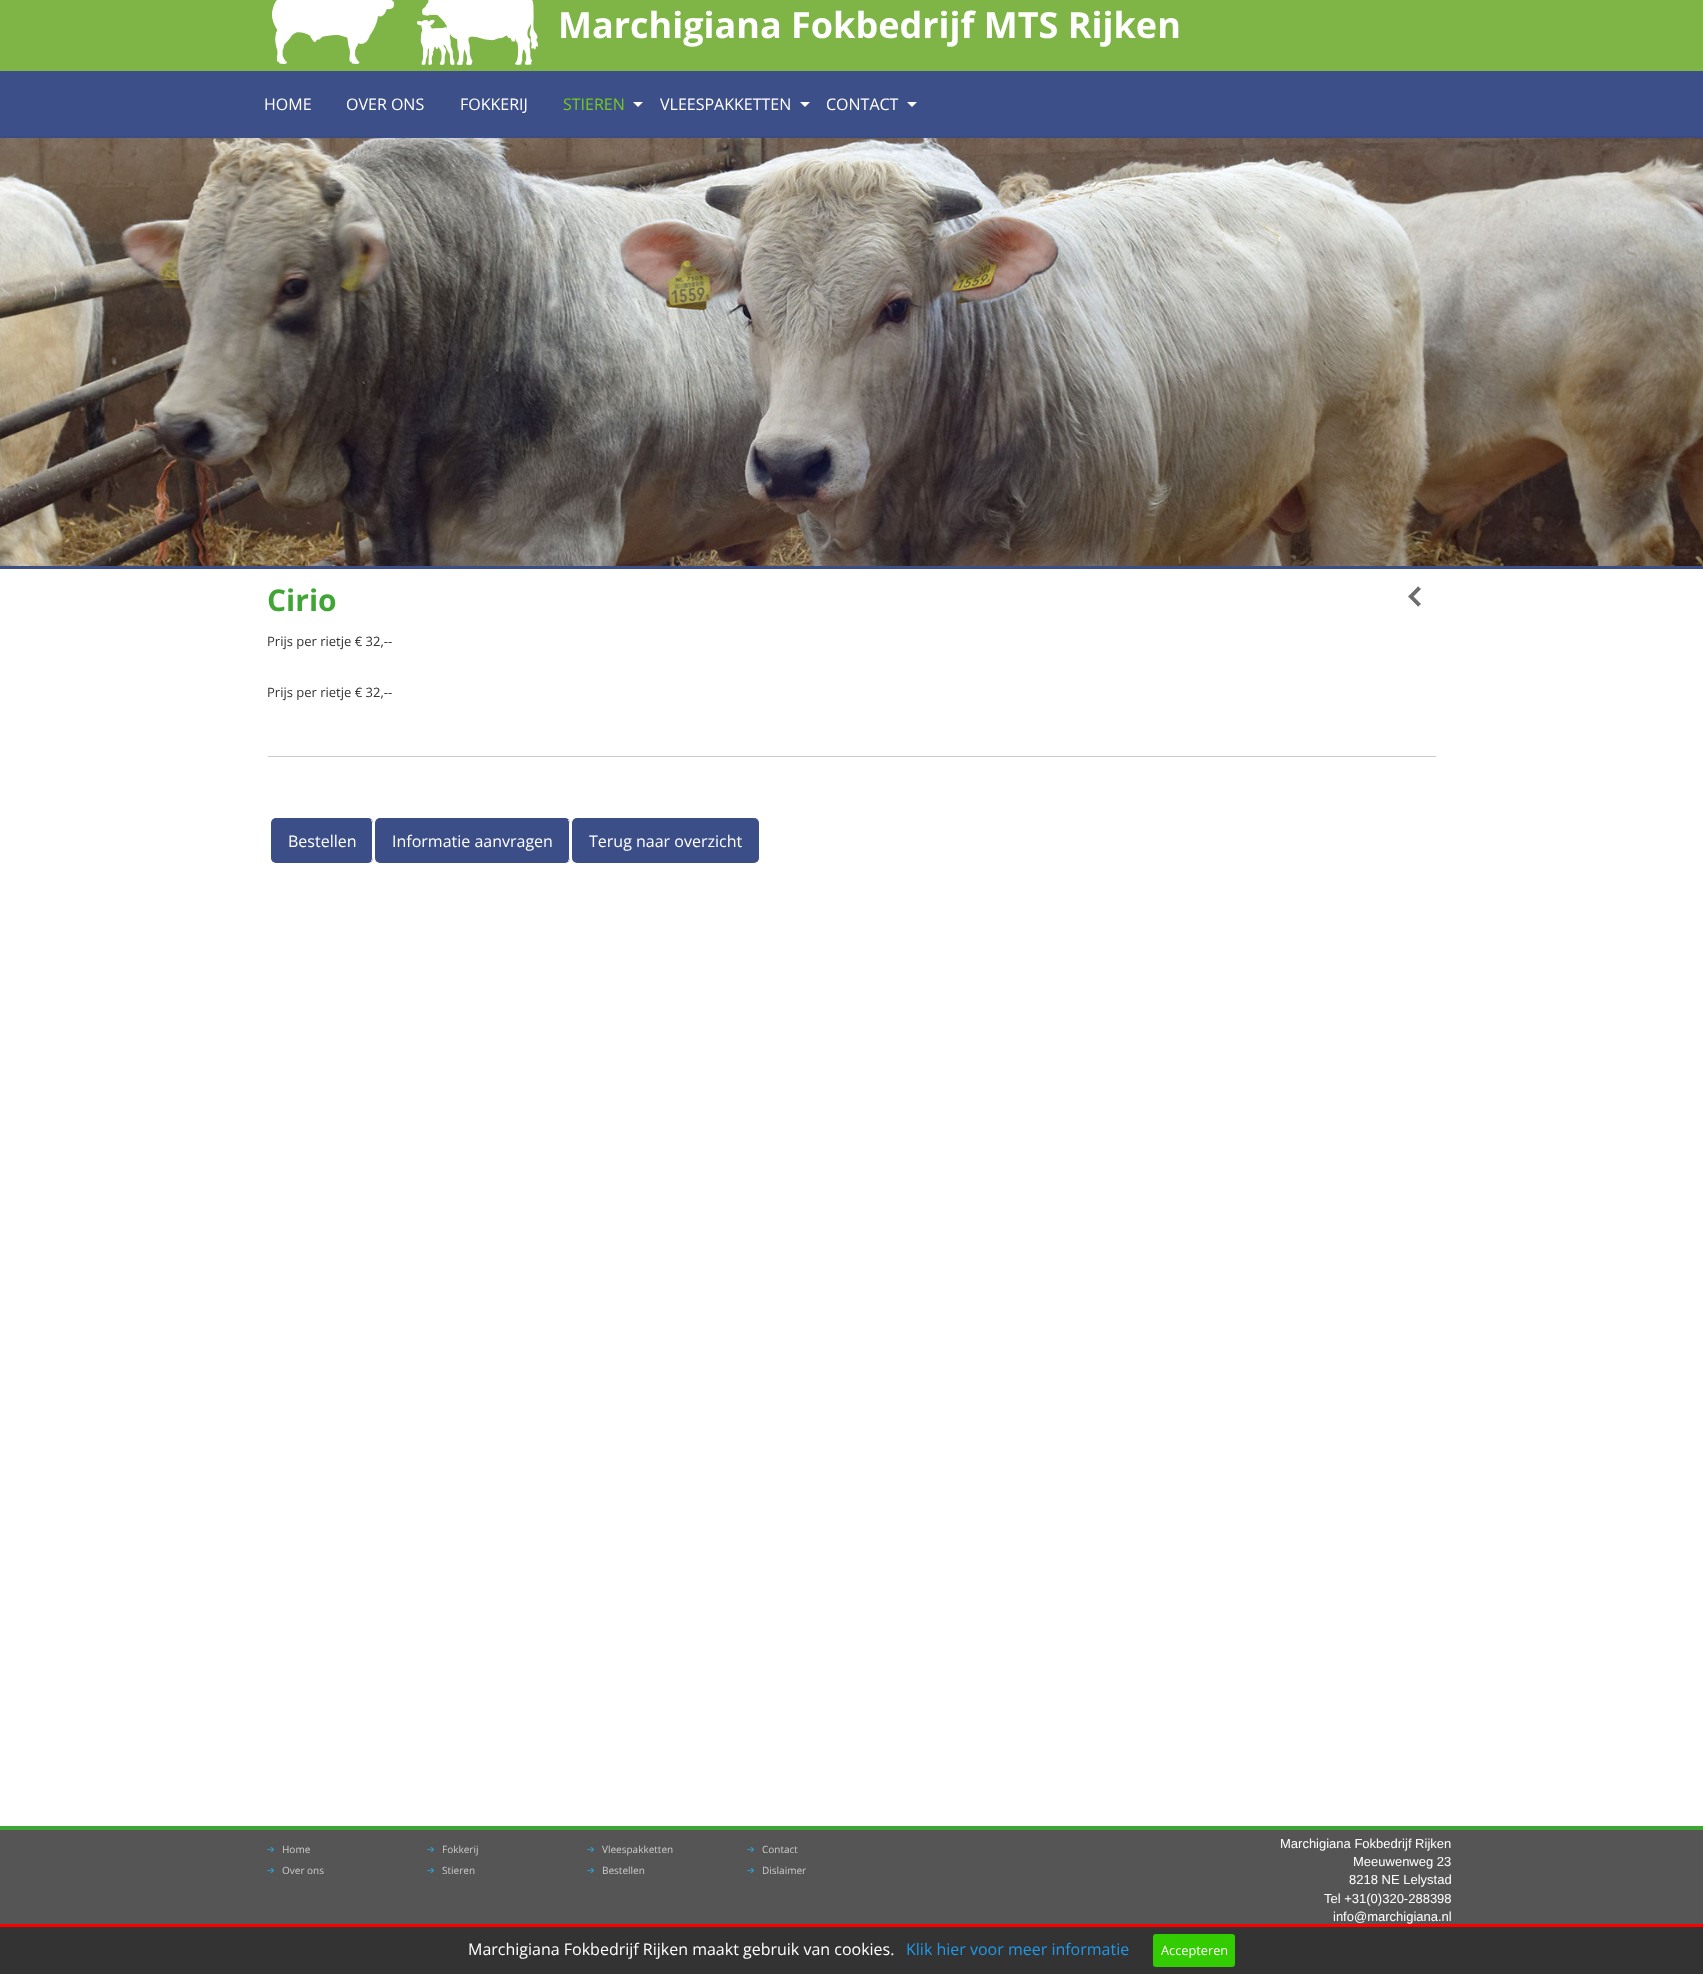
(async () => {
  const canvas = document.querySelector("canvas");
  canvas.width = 1703;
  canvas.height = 1974;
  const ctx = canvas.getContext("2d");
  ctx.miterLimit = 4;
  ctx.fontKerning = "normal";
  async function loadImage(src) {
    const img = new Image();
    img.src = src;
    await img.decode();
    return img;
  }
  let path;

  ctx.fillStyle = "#ffffff";
  ctx.fillRect(0, 0, 1703, 1974);
  ctx.fillStyle = "#7fb547";
  ctx.fillRect(0, 0, 1703, 71);
  ctx.drawImage(await loadImage("img/1.png"), 272, 0, 266, 65);
  ctx.drawImage(await loadImage("img/2.png"), 0, 136, 1703, 430);
  ctx.fillStyle = "rgba(57, 75, 134, 0.98)";
  ctx.fillRect(0, 71, 1703, 67);
  ctx.fillStyle = "#ffffff";
  path = new Path2D("M633 102H643L638 107Z");
  ctx.fill(path);
  path = new Path2D("M800 102H810L805 107Z");
  ctx.fill(path);
  path = new Path2D("M907 102H917L912 107Z");
  ctx.fill(path);
  ctx.fillStyle = "#3c4e88";
  ctx.fillRect(0, 566, 1703, 3);
  ctx.drawImage(await loadImage("img/3.png"), 1408, 586, 13, 21);
  ctx.fillStyle = "#cacaca";
  ctx.fillRect(268, 756, 1168, 1);
  ctx.fillStyle = "#3c4e88";
  ctx.beginPath();
  ctx.roundRect(271, 818, 102, 45, 5);
  ctx.fill();
  path = new Path2D("M371 820C372 820.5 372.5 822 372.5 823V858C372.5 859 372 860.5 371 861");
  ctx.strokeStyle = "#fefefe";
  ctx.stroke(path);
  ctx.beginPath();
  ctx.roundRect(375, 818, 195, 45, 5);
  ctx.fill();
  path = new Path2D("M568 820C569 820.5 569.5 822 569.5 823V858C569.5 859 569 860.5 568 861");
  ctx.stroke(path);
  ctx.beginPath();
  ctx.roundRect(572, 818, 187, 45, 5);
  ctx.fill();
  ctx.fillStyle = "#555555";
  ctx.fillRect(0, 1830, 1703, 94);
  ctx.fillStyle = "#41a535";
  ctx.fillRect(0, 1826, 1703, 4);
  ctx.drawImage(await loadImage("img/4.png"), 267, 1847, 7, 5);
  ctx.drawImage(await loadImage("img/4.png"), 267, 1868, 7, 5);
  ctx.drawImage(await loadImage("img/4.png"), 427, 1847, 7, 5);
  ctx.drawImage(await loadImage("img/4.png"), 427, 1868, 7, 5);
  ctx.drawImage(await loadImage("img/4.png"), 587, 1847, 7, 5);
  ctx.drawImage(await loadImage("img/4.png"), 587, 1868, 7, 5);
  ctx.drawImage(await loadImage("img/4.png"), 747, 1847, 7, 5);
  ctx.drawImage(await loadImage("img/4.png"), 747, 1868, 7, 5);
  ctx.fillStyle = "#333333";
  ctx.fillRect(0, 1927, 1703, 47);
  ctx.fillStyle = "#ff0000";
  ctx.fillRect(0, 1924, 1703, 3);
  ctx.fillStyle = "#33cc00";
  ctx.beginPath();
  ctx.roundRect(1153, 1934, 82, 33, 3);
  ctx.fill();
  ctx.font = "bold 36px Open Sans";
  ctx.fillStyle = "#ffffff";
  ctx.fillText("Marchigiana Fokbedrijf MTS Rijken", 558, 38);
  ctx.font = "16px Open Sans";
  for (const [text, x, y] of [
    ["HOME", 264, 110],
    ["OVER ONS", 346, 110],
    ["FOKKERIJ", 460, 110],
  ]) {
    ctx.fillText(text, x, y);
  }
  ctx.fillStyle = "#75cb1d";
  ctx.fillText("STIEREN", 563, 110);
  ctx.fillStyle = "#ffffff";
  ctx.fillText("VLEESPAKKETTEN", 660, 110);
  ctx.fillText("CONTACT", 826, 110);
  ctx.font = "bold 30px Open Sans";
  ctx.fillStyle = "#41a535";
  ctx.fillText("Cirio", 267, 611);
  ctx.font = "13px Open Sans";
  ctx.fillStyle = "#333333";
  ctx.fillText("Prijs per rietje € 32,--", 267, 646);
  ctx.fillText("Prijs per rietje € 32,--", 267, 697);
  ctx.font = "16px Open Sans";
  ctx.fillStyle = "#ffffff";
  for (const [text, x, y] of [
    ["Bestellen", 288, 847],
    ["Informatie aanvragen", 392, 847],
    ["Terug naar overzicht", 589, 847],
  ]) {
    ctx.fillText(text, x, y);
  }
  ctx.font = "10px Open Sans";
  ctx.fillStyle = "#cccccc";
  for (const [text, x, y] of [
    ["Home", 282, 1853],
    ["Over ons", 282, 1874],
    ["Fokkerij", 442, 1853],
    ["Stieren", 442, 1874],
    ["Vleespakketten", 602, 1853],
    ["Bestellen", 602, 1874],
    ["Contact", 762, 1853],
    ["Dislaimer", 762, 1874],
  ]) {
    ctx.fillText(text, x, y);
  }
  ctx.font = "13px Liberation Sans";
  ctx.fillStyle = "#ffffff";
  for (const [text, x, y] of [
    ["Marchigiana Fokbedrijf Rijken", 1280, 1848],
    ["Meeuwenweg 23", 1353, 1866],
    ["8218 NE Lelystad", 1349, 1884],
    ["Tel +31(0)320-288398", 1324, 1903],
    ["info@marchigiana.nl", 1333, 1921],
  ]) {
    ctx.fillText(text, x, y);
  }
  ctx.font = "16px Open Sans";
  ctx.fillText("Marchigiana Fokbedrijf Rijken maakt gebruik van cookies.", 468, 1955);
  ctx.fillStyle = "#2199e8";
  ctx.fillText("Klik hier voor meer informatie", 906, 1955);
  ctx.font = "12.75px Open Sans";
  ctx.fillStyle = "#ffffff";
  ctx.fillText("Accepteren", 1161, 1955);
})();
